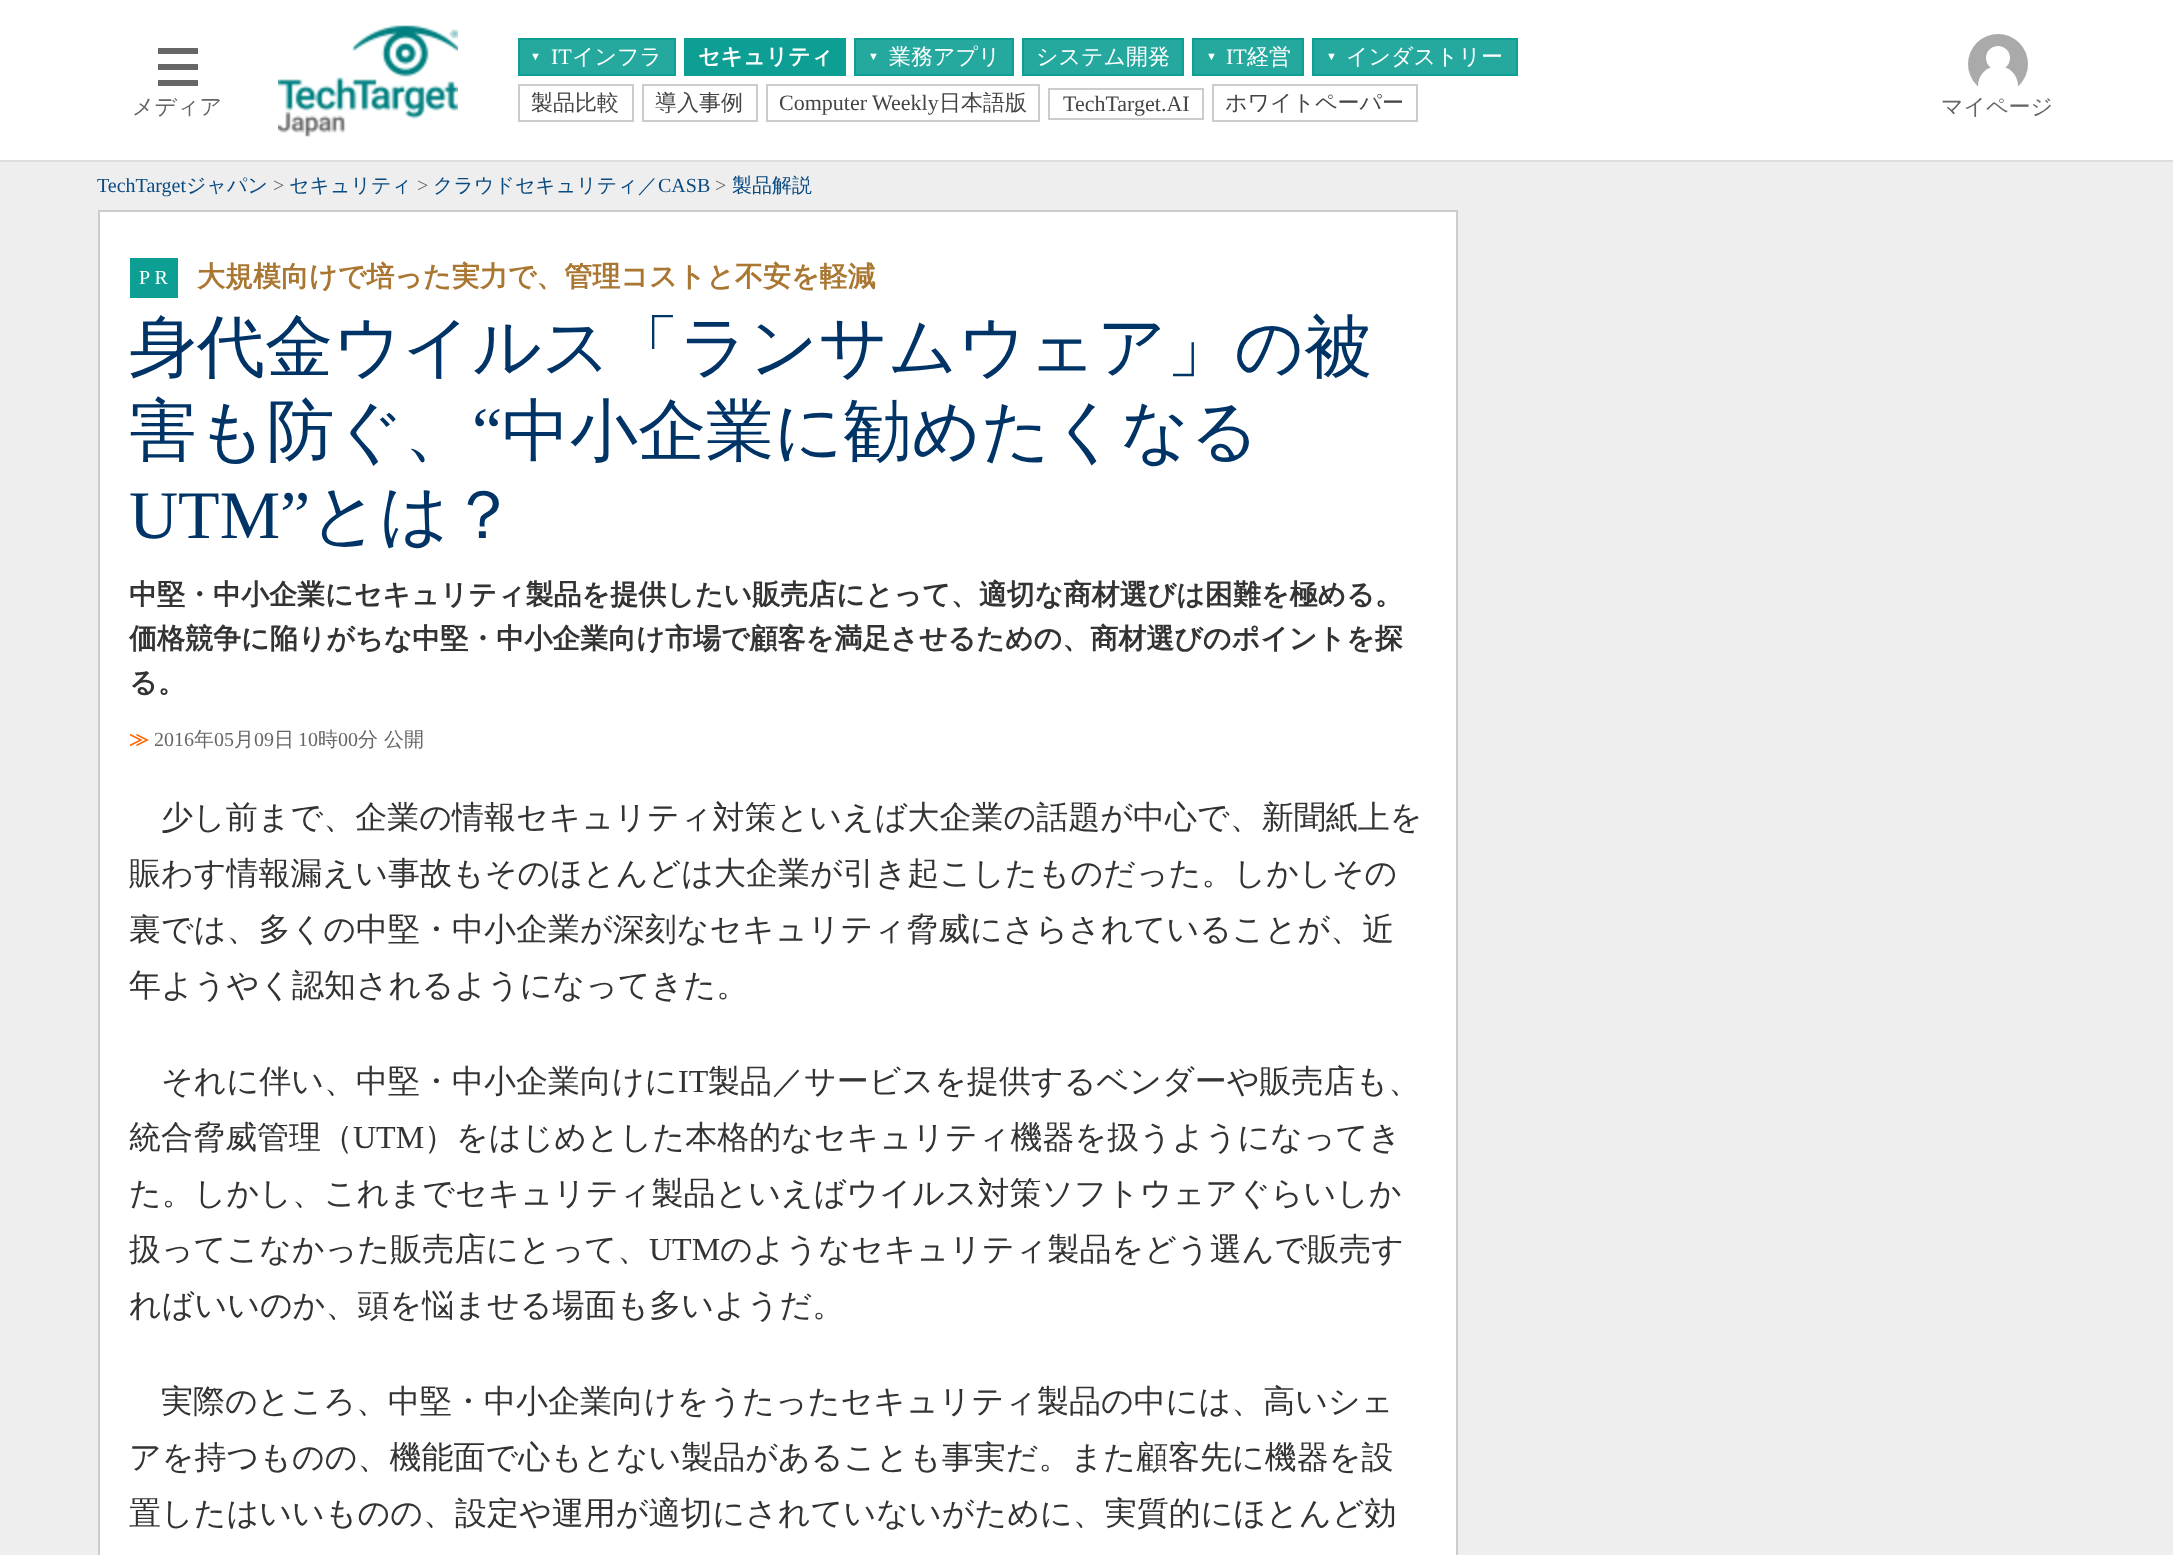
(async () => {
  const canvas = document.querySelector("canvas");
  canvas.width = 2173;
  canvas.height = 1555;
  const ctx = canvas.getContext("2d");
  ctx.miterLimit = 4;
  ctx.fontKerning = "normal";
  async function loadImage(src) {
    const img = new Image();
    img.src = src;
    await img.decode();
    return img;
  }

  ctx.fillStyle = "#ffffff";
  ctx.fillRect(0, 0, 2173, 1555);
  for (const [x, y, w, h, color] of [
    [0, 160, 2173, 2, "#dddddd"],
    [158, 48, 40, 6, "#666666"],
    [158, 64, 40, 6, "#666666"],
    [158, 80, 40, 6, "#666666"],
  ]) {
    ctx.fillStyle = color;
    ctx.fillRect(x, y, w, h);
  }
  ctx.drawImage(await loadImage("img/1.png"), 278, 25, 180, 112);
  ctx.fillStyle = "#25a99f";
  ctx.beginPath();
  ctx.rect(519, 39, 156, 36);
  ctx.fill();
  ctx.strokeStyle = "#0d9f94";
  ctx.lineWidth = 2;
  ctx.stroke();
  ctx.strokeRect(685, 39, 160, 36);
  ctx.fillStyle = "#0d9f94";
  ctx.fillRect(686, 40, 158, 34);
  ctx.fillStyle = "#25a99f";
  ctx.beginPath();
  ctx.rect(855, 39, 158, 36);
  ctx.fill();
  ctx.stroke();
  ctx.beginPath();
  ctx.rect(1023, 39, 160, 36);
  ctx.fill();
  ctx.stroke();
  ctx.beginPath();
  ctx.rect(1193, 39, 110, 36);
  ctx.fill();
  ctx.stroke();
  ctx.beginPath();
  ctx.rect(1313, 39, 204, 36);
  ctx.fill();
  ctx.stroke();
  ctx.strokeStyle = "#cccccc";
  ctx.strokeRect(519, 85, 114, 36);
  ctx.strokeRect(643, 85, 114, 36);
  ctx.strokeRect(767, 85, 272, 36);
  ctx.strokeRect(1049, 89, 154, 30);
  ctx.strokeRect(1213, 85, 204, 36);
  ctx.fillStyle = "#aaaaaa";
  ctx.beginPath();
  ctx.arc(1998, 64, 30, 0, Math.PI * 2);
  ctx.fill();
  ctx.fillStyle = "#ffffff";
  ctx.beginPath();
  ctx.roundRect(1978, 66, 40, 28, [20, 20, 0, 0]);
  ctx.fill();
  ctx.beginPath();
  ctx.arc(1998, 58, 12, 0, Math.PI * 2);
  ctx.fill();
  ctx.fillStyle = "#eeeeee";
  ctx.fillRect(0, 162, 2173, 1393);
  ctx.fillStyle = "#ffffff";
  ctx.beginPath();
  ctx.rect(99, 211, 1358, 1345);
  ctx.fill();
  ctx.stroke();
  ctx.fillStyle = "#0d9f94";
  ctx.fillRect(130, 258, 48, 40);
  ctx.font = "500 22px WenQuanYi Zen Hei";
  ctx.fillStyle = "#666666";
  ctx.fillText("メディア", 132, 114);
  ctx.font = "11px Liberation Serif";
  ctx.fillStyle = "#ffffff";
  ctx.fillText("▼", 530, 60);
  ctx.font = "22px Liberation Serif";
  ctx.fillText("IT", 551, 64);
  ctx.font = "500 22px WenQuanYi Zen Hei";
  ctx.fillText("インフラ", 572, 64);
  ctx.font = "bold 22px WenQuanYi Zen Hei";
  ctx.fillText("セキュリティ", 698, 64);
  ctx.font = "11px Liberation Serif";
  ctx.fillText("▼", 868, 60);
  ctx.font = "500 22px WenQuanYi Zen Hei";
  ctx.fillText("業務アプリ", 889, 64);
  ctx.fillText("システム開発", 1036, 64);
  ctx.font = "11px Liberation Serif";
  ctx.fillText("▼", 1206, 60);
  ctx.font = "22px Liberation Serif";
  ctx.fillText("IT", 1226, 64);
  ctx.font = "500 22px WenQuanYi Zen Hei";
  ctx.fillText("経営", 1247, 64);
  ctx.font = "11px Liberation Serif";
  ctx.fillText("▼", 1326, 60);
  ctx.font = "500 22px WenQuanYi Zen Hei";
  ctx.fillText("インダストリー", 1346, 64);
  ctx.fillStyle = "#444444";
  ctx.fillText("製品比較", 531, 110);
  ctx.fillText("導入事例", 655, 110);
  ctx.font = "22px Liberation Serif";
  ctx.fillText("Computer Weekly", 779, 110);
  ctx.font = "500 22px WenQuanYi Zen Hei";
  ctx.fillText("日本語版", 939, 110);
  ctx.font = "22px Liberation Serif";
  ctx.fillText("TechTarget.AI", 1063, 111);
  ctx.font = "500 22px WenQuanYi Zen Hei";
  ctx.fillText("ホワイトペーパー", 1225, 110);
  ctx.fillStyle = "#666666";
  ctx.fillText("マイページ", 1941, 114);
  ctx.font = "20px Liberation Serif";
  ctx.fillStyle = "#094a81";
  ctx.fillText("TechTarget", 97, 192);
  ctx.font = "500 20px WenQuanYi Zen Hei";
  ctx.fillText("ジャパン", 186, 192);
  ctx.font = "20px Liberation Serif";
  ctx.fillStyle = "#666666";
  ctx.fillText(">", 273, 192);
  ctx.font = "500 20px WenQuanYi Zen Hei";
  ctx.fillStyle = "#094a81";
  ctx.fillText("セキュリティ", 289, 192);
  ctx.font = "20px Liberation Serif";
  ctx.fillStyle = "#666666";
  ctx.fillText(">", 417, 192);
  ctx.font = "500 20px WenQuanYi Zen Hei";
  ctx.fillStyle = "#094a81";
  ctx.fillText("クラウドセキュリティ／", 433, 192);
  ctx.font = "20px Liberation Serif";
  ctx.fillText("CASB", 658, 192);
  ctx.fillStyle = "#666666";
  ctx.fillText(">", 715, 192);
  ctx.font = "500 20px WenQuanYi Zen Hei";
  ctx.fillStyle = "#094a81";
  ctx.fillText("製品解説", 732, 192);
  ctx.font = "20px Liberation Serif";
  ctx.fillStyle = "#ffffff";
  ctx.fillText("P R", 139, 284);
  ctx.font = "bold 28px WenQuanYi Zen Hei";
  ctx.fillStyle = "#aa7733";
  ctx.fillText("大規模向けで培った実力で、管理コストと不安を軽減", 197, 286);
  ctx.font = "500 68px WenQuanYi Zen Hei";
  ctx.fillStyle = "#003366";
  ctx.fillText("身代金ウイルス「ランサムウェア」の被", 129, 370);
  ctx.fillText("害も防ぐ、", 129, 454);
  ctx.font = "68px Liberation Serif";
  ctx.fillText("“", 472, 454);
  ctx.font = "500 68px WenQuanYi Zen Hei";
  ctx.fillText("中小企業に勧めたくなる", 502, 454);
  ctx.font = "68px Liberation Serif";
  ctx.fillText("UTM”", 129, 538);
  ctx.font = "500 68px WenQuanYi Zen Hei";
  ctx.fillText("とは？", 310, 538);
  ctx.font = "bold 28px WenQuanYi Zen Hei";
  ctx.fillStyle = "#333333";
  for (const [text, x, y] of [
    ["中堅・中小企業にセキュリティ製品を提供したい販売店にとって、適切な商材選びは困難を極める。", 129, 604],
    ["価格競争に陥りがちな中堅・中小企業向け市場で顧客を満足させるための、商材選びのポイントを探", 129, 648],
    ["る。", 129, 692],
  ]) {
    ctx.fillText(text, x, y);
  }
  ctx.font = "bold 20px WenQuanYi Zen Hei";
  ctx.fillStyle = "#ff6600";
  ctx.fillText("≫", 129, 746);
  ctx.font = "20px Liberation Serif";
  ctx.fillStyle = "#666666";
  ctx.fillText("2016", 154, 746);
  ctx.font = "500 20px WenQuanYi Zen Hei";
  ctx.fillText("年", 194, 746);
  ctx.font = "20px Liberation Serif";
  ctx.fillText("05", 214, 746);
  ctx.font = "500 20px WenQuanYi Zen Hei";
  ctx.fillText("月", 234, 746);
  ctx.font = "20px Liberation Serif";
  ctx.fillText("09", 254, 746);
  ctx.font = "500 20px WenQuanYi Zen Hei";
  ctx.fillText("日", 274, 746);
  ctx.font = "20px Liberation Serif";
  ctx.fillText("10", 298, 746);
  ctx.font = "500 20px WenQuanYi Zen Hei";
  ctx.fillText("時", 318, 746);
  ctx.font = "20px Liberation Serif";
  ctx.fillText("00", 338, 746);
  ctx.font = "500 20px WenQuanYi Zen Hei";
  ctx.fillText("分 公開", 358, 746);
  ctx.font = "500 32px WenQuanYi Zen Hei";
  ctx.fillStyle = "#333333";
  for (const [text, x, y] of [
    ["少し前まで、企業の情報セキュリティ対策といえば大企業の話題が中心で、新聞紙上を", 161, 828],
    ["賑わす情報漏えい事故もそのほとんどは大企業が引き起こしたものだった。しかしその", 129, 884],
    ["裏では、多くの中堅・中小企業が深刻なセキュリティ脅威にさらされていることが、近", 129, 940],
    ["年ようやく認知されるようになってきた。", 129, 996],
    ["それに伴い、中堅・中小企業向けに", 161, 1092],
  ]) {
    ctx.fillText(text, x, y);
  }
  ctx.font = "32px Liberation Serif";
  ctx.fillText("IT", 678, 1092);
  ctx.font = "500 32px WenQuanYi Zen Hei";
  ctx.fillText("製品／サービスを提供するベンダーや販売店も、", 708, 1092);
  ctx.fillText("統合脅威管理（", 129, 1148);
  ctx.font = "32px Liberation Serif";
  ctx.fillText("UTM", 353, 1148);
  ctx.font = "500 32px WenQuanYi Zen Hei";
  for (const [text, x, y] of [
    ["）をはじめとした本格的なセキュリティ機器を扱うようになってき", 424, 1148],
    ["た。しかし、これまでセキュリティ製品といえばウイルス対策ソフトウェアぐらいしか", 129, 1204],
    ["扱ってこなかった販売店にとって、", 129, 1260],
  ]) {
    ctx.fillText(text, x, y);
  }
  ctx.font = "32px Liberation Serif";
  ctx.fillText("UTM", 649, 1260);
  ctx.font = "500 32px WenQuanYi Zen Hei";
  for (const [text, x, y] of [
    ["のようなセキュリティ製品をどう選んで販売す", 720, 1260],
    ["ればいいのか、頭を悩ませる場面も多いようだ。", 129, 1316],
    ["実際のところ、中堅・中小企業向けをうたったセキュリティ製品の中には、高いシェ", 161, 1412],
    ["アを持つものの、機能面で心もとない製品があることも事実だ。また顧客先に機器を設", 129, 1468],
    ["置したはいいものの、設定や運用が適切にされていないがために、実質的にほとんど効", 129, 1524],
  ]) {
    ctx.fillText(text, x, y);
  }
})();
